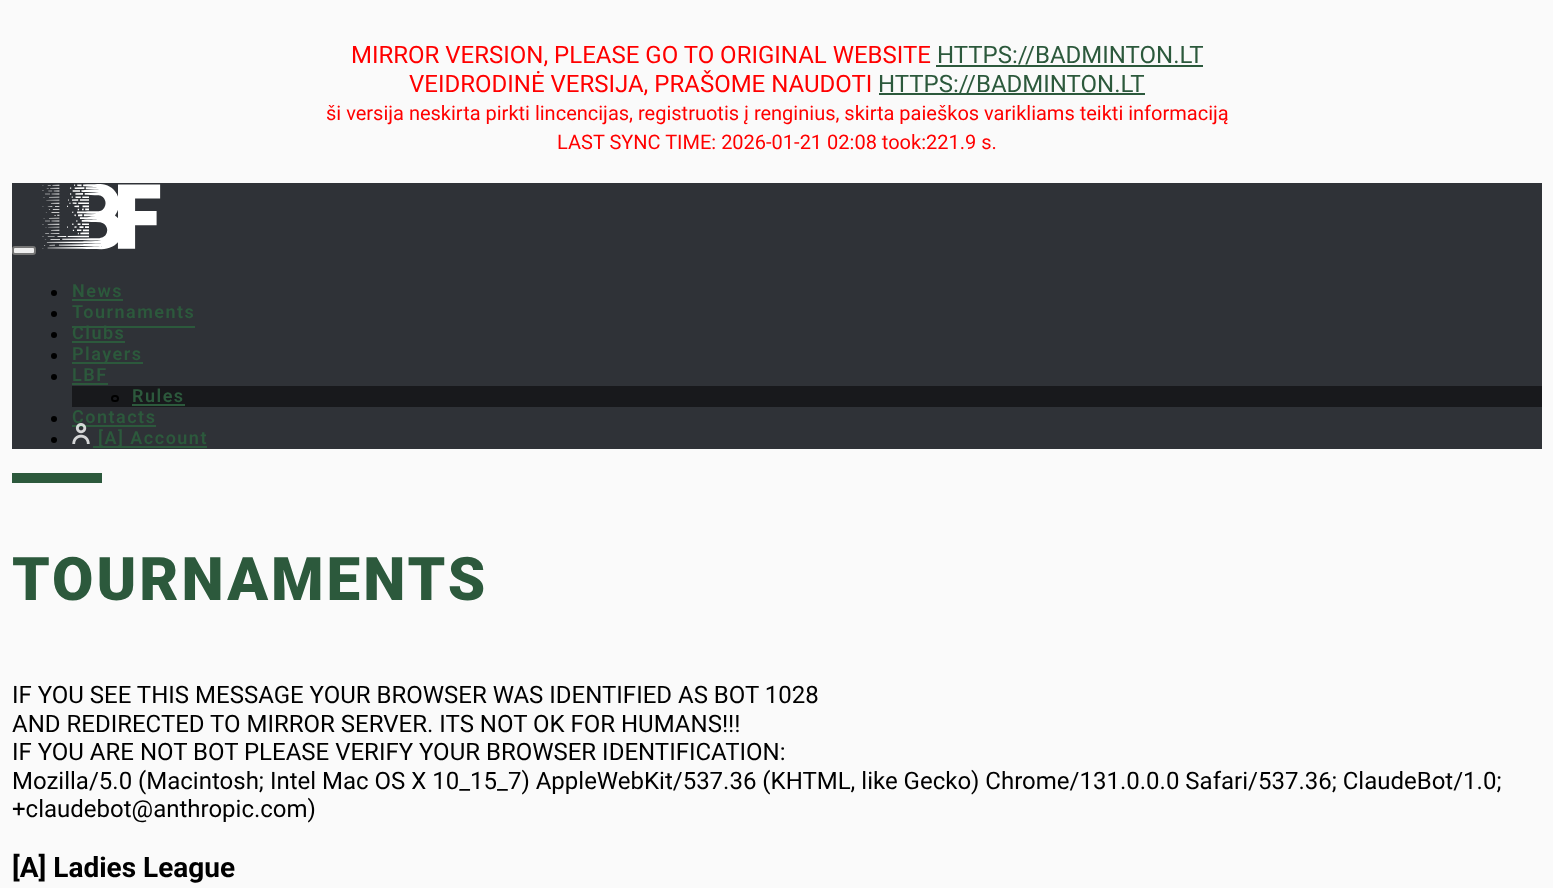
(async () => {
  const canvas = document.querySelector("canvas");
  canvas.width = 1553;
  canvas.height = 888;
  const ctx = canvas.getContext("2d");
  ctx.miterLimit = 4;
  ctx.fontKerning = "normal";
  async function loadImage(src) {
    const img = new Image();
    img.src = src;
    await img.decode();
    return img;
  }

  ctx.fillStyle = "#fafafa";
  ctx.fillRect(0, 0, 1553, 888);
  for (const [x, y, w, h, color] of [
    [936, 65, 267, 2, "#2c593c"],
    [879, 93, 266, 2, "#2c593c"],
    [12, 183, 1530, 266, "#2f3237"],
  ]) {
    ctx.fillStyle = color;
    ctx.fillRect(x, y, w, h);
  }
  ctx.fillStyle = "#efefef";
  ctx.beginPath();
  ctx.roundRect(13, 247, 22, 7, 2);
  ctx.fill();
  ctx.strokeStyle = "#767676";
  ctx.lineWidth = 2;
  ctx.stroke();
  ctx.drawImage(await loadImage("img/1.png"), 42, 184, 119, 66);
  ctx.fillStyle = "#000000";
  ctx.beginPath();
  ctx.arc(54, 293, 3, 0, Math.PI * 2);
  ctx.fill();
  ctx.fillStyle = "#2c593c";
  ctx.fillRect(72, 299, 51, 2);
  ctx.fillStyle = "#000000";
  ctx.beginPath();
  ctx.arc(54, 314, 3, 0, Math.PI * 2);
  ctx.fill();
  ctx.fillStyle = "#2c593c";
  ctx.fillRect(72, 326, 123, 2);
  ctx.fillStyle = "#000000";
  ctx.beginPath();
  ctx.arc(54, 335, 3, 0, Math.PI * 2);
  ctx.fill();
  ctx.fillStyle = "#2c593c";
  ctx.fillRect(72, 341, 53, 2);
  ctx.fillStyle = "#000000";
  ctx.beginPath();
  ctx.arc(54, 356, 3, 0, Math.PI * 2);
  ctx.fill();
  ctx.fillStyle = "#2c593c";
  ctx.fillRect(72, 362, 71, 2);
  ctx.fillStyle = "#000000";
  ctx.beginPath();
  ctx.arc(54, 377, 3, 0, Math.PI * 2);
  ctx.fill();
  ctx.fillStyle = "#2c593c";
  ctx.fillRect(72, 383, 36, 2);
  ctx.fillStyle = "#18191c";
  ctx.fillRect(72, 386, 1470, 21);
  ctx.beginPath();
  ctx.roundRect(112, 396, 6, 5, 2.5);
  ctx.strokeStyle = "#000000";
  ctx.stroke();
  ctx.fillStyle = "#2c593c";
  ctx.fillRect(132, 404, 53, 2);
  ctx.fillStyle = "#000000";
  ctx.beginPath();
  ctx.arc(54, 419, 3, 0, Math.PI * 2);
  ctx.fill();
  ctx.fillStyle = "#2c593c";
  ctx.fillRect(72, 425, 84, 2);
  ctx.fillStyle = "#000000";
  ctx.beginPath();
  ctx.arc(54, 440, 3, 0, Math.PI * 2);
  ctx.fill();
  ctx.fillStyle = "#2c593c";
  ctx.fillRect(93, 446, 114, 2);
  ctx.fillRect(12, 473, 90, 10);
  ctx.font = "24px Roboto";
  ctx.fillStyle = "#ff0000";
  ctx.fillText("MIRROR VERSION, PLEASE GO TO ORIGINAL WEBSITE", 351, 63);
  ctx.fillStyle = "#2c593c";
  ctx.fillText("HTTPS://BADMINTON.LT", 937, 63);
  ctx.fillStyle = "#ff0000";
  ctx.fillText("VEIDRODINĖ VERSIJA, PRAŠOME NAUDOTI", 409, 92);
  ctx.fillStyle = "#2c593c";
  ctx.fillText("HTTPS://BADMINTON.LT", 878, 92);
  ctx.font = "20px Roboto";
  ctx.fillStyle = "#ff0000";
  ctx.fillText("ši versija neskirta pirkti lincencijas, registruotis į renginius, skirta paieškos varikliams teikti informaciją", 326, 120);
  ctx.fillText("LAST SYNC TIME: 2026-01-21 02:08 took:221.9 s.", 557, 149);
  ctx.letterSpacing = "1.5px";
  ctx.font = "600 18px Roboto";
  ctx.fillStyle = "#2c593c";
  for (const [text, x, y] of [
    ["News", 72, 297],
    ["Tournaments", 72, 318],
    ["Clubs", 72, 339],
    ["Players", 72, 360],
    ["LBF", 72, 381],
    ["Rules", 132, 402],
    ["Contacts", 72, 423],
  ]) {
    ctx.fillText(text, x, y);
  }
  ctx.drawImage(await loadImage("img/2.png"), 72, 423, 18, 21);
  ctx.fillText("[A] Account", 98, 444);
  ctx.letterSpacing = "3px";
  ctx.font = "900 60px Roboto";
  ctx.fillText("TOURNAMENTS", 12, 600);
  ctx.letterSpacing = "0px";
  ctx.font = "24px Roboto";
  ctx.fillStyle = "#000000";
  for (const [text, x, y] of [
    ["IF YOU SEE THIS MESSAGE YOUR BROWSER WAS IDENTIFIED AS BOT 1028", 12, 703],
    ["AND REDIRECTED TO MIRROR SERVER. ITS NOT OK FOR HUMANS!!!", 12, 732],
    ["IF YOU ARE NOT BOT PLEASE VERIFY YOUR BROWSER IDENTIFICATION:", 12, 760],
    ["Mozilla/5.0 (Macintosh; Intel Mac OS X 10_15_7) AppleWebKit/537.36 (KHTML, like Gecko) Chrome/131.0.0.0 Safari/537.36; ClaudeBot/1.0;", 12, 789],
    ["+claudebot@anthropic.com)", 12, 817],
  ]) {
    ctx.fillText(text, x, y);
  }
  ctx.font = "bold 28px Roboto";
  ctx.fillText("[A] Ladies League", 12, 877);
})();
